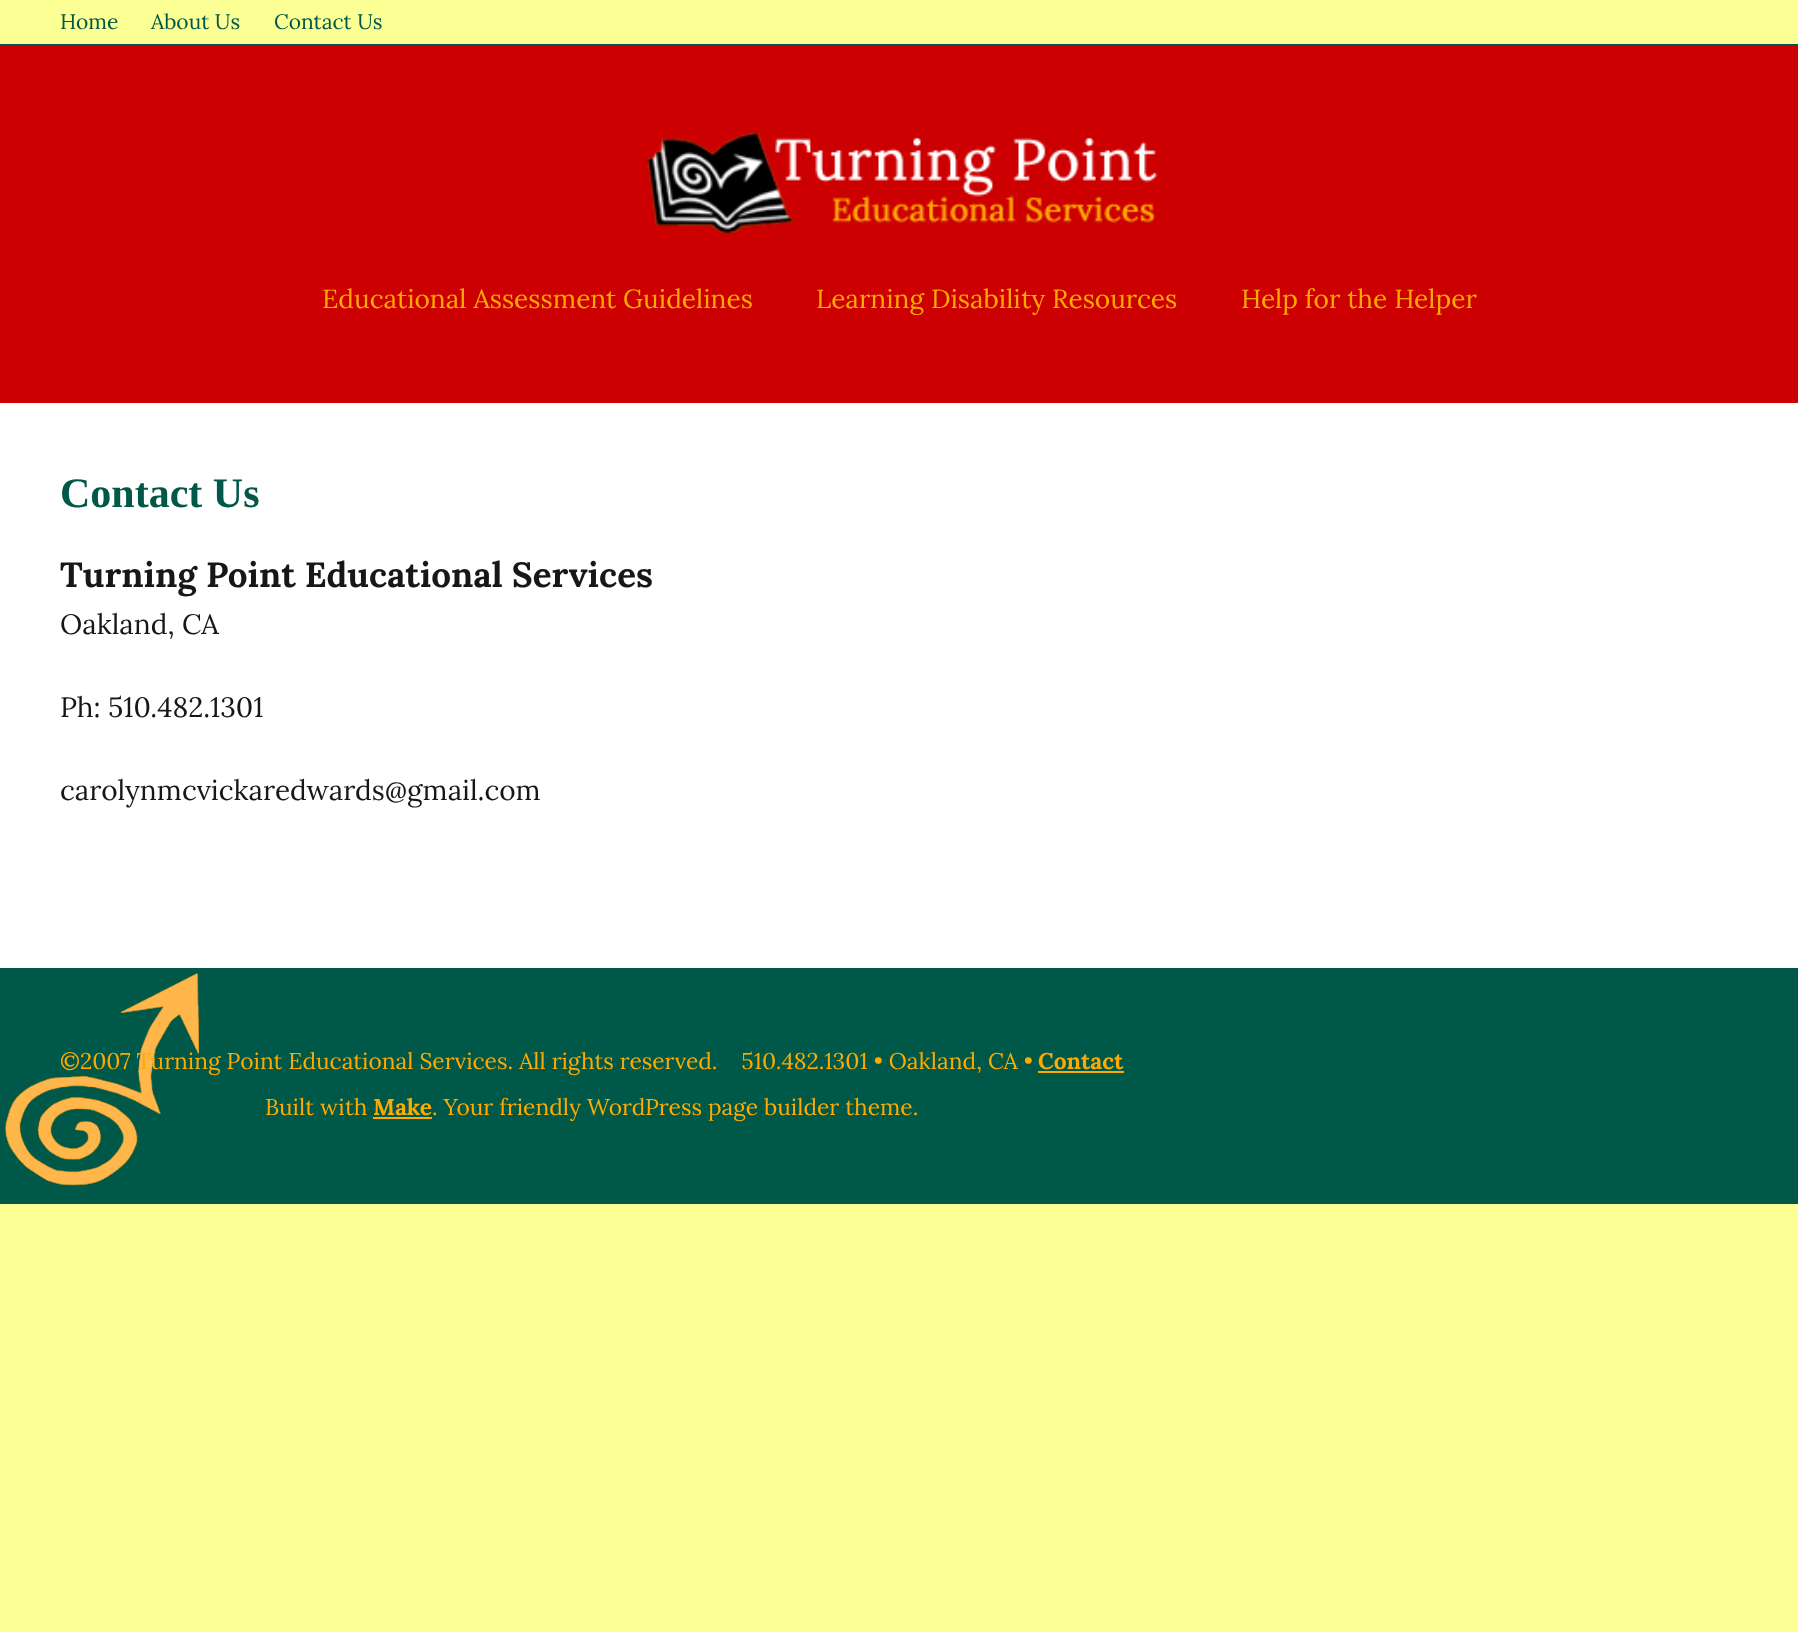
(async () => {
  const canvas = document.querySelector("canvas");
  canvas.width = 1798;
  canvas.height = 1632;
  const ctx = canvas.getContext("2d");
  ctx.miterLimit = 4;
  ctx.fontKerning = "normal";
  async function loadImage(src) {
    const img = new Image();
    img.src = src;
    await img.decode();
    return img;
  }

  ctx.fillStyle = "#fbff94";
  ctx.fillRect(0, 0, 1798, 1632);
  ctx.fillStyle = "#005848";
  ctx.fillRect(0, 44, 1798, 2);
  ctx.fillStyle = "#cc0000";
  ctx.fillRect(0, 46, 1798, 357);
  ctx.drawImage(await loadImage("img/1.png"), 647, 132, 511, 102);
  ctx.fillStyle = "#ffffff";
  ctx.fillRect(0, 403, 1798, 565);
  ctx.fillStyle = "#005848";
  ctx.fillRect(0, 968, 1798, 236);
  ctx.drawImage(await loadImage("img/2.png"), 5, 973, 194, 213);
  ctx.fillStyle = "#ffaa00";
  ctx.fillRect(1038, 1071, 86, 2);
  ctx.fillRect(373, 1117, 59, 2);
  ctx.font = "21px Lora";
  ctx.fillStyle = "#005848";
  for (const [text, x, y] of [
    ["Home", 60, 29],
    ["About Us", 151, 29],
    ["Contact Us", 274, 29],
  ]) {
    ctx.fillText(text, x, y);
  }
  ctx.font = "26.25px Lora";
  ctx.fillStyle = "#ffaa00";
  for (const [text, x, y] of [
    ["Educational Assessment Guidelines", 322, 308],
    ["Learning Disability Resources", 816, 308],
    ["Help for the Helper", 1241, 308],
  ]) {
    ctx.fillText(text, x, y);
  }
  ctx.font = "bold 42px Liberation Serif";
  ctx.fillStyle = "#005848";
  ctx.fillText("Contact Us", 60, 507);
  ctx.font = "bold 35px Lora";
  ctx.fillStyle = "#171717";
  ctx.fillText("Turning Point Educational Services", 60, 587);
  ctx.font = "28px Lora";
  for (const [text, x, y] of [
    ["Oakland, CA", 60, 634],
    ["Ph: 510.482.1301", 60, 717],
    ["carolynmcvickaredwards@gmail.com", 60, 800],
  ]) {
    ctx.fillText(text, x, y);
  }
  ctx.font = "22.75px Lora";
  ctx.fillStyle = "#ffaa00";
  ctx.fillText("©2007 Turning Point Educational Services. All rights reserved.    510.482.1301 • Oakland, CA •", 60, 1069);
  ctx.font = "bold 22.75px Lora";
  ctx.fillText("Contact", 1038, 1069);
  ctx.font = "22.75px Lora";
  ctx.fillText("Built with", 265, 1115);
  ctx.font = "bold 22.75px Lora";
  ctx.fillText("Make", 373, 1115);
  ctx.font = "22.75px Lora";
  ctx.fillText(". Your friendly WordPress page builder theme.", 432, 1115);
})();
